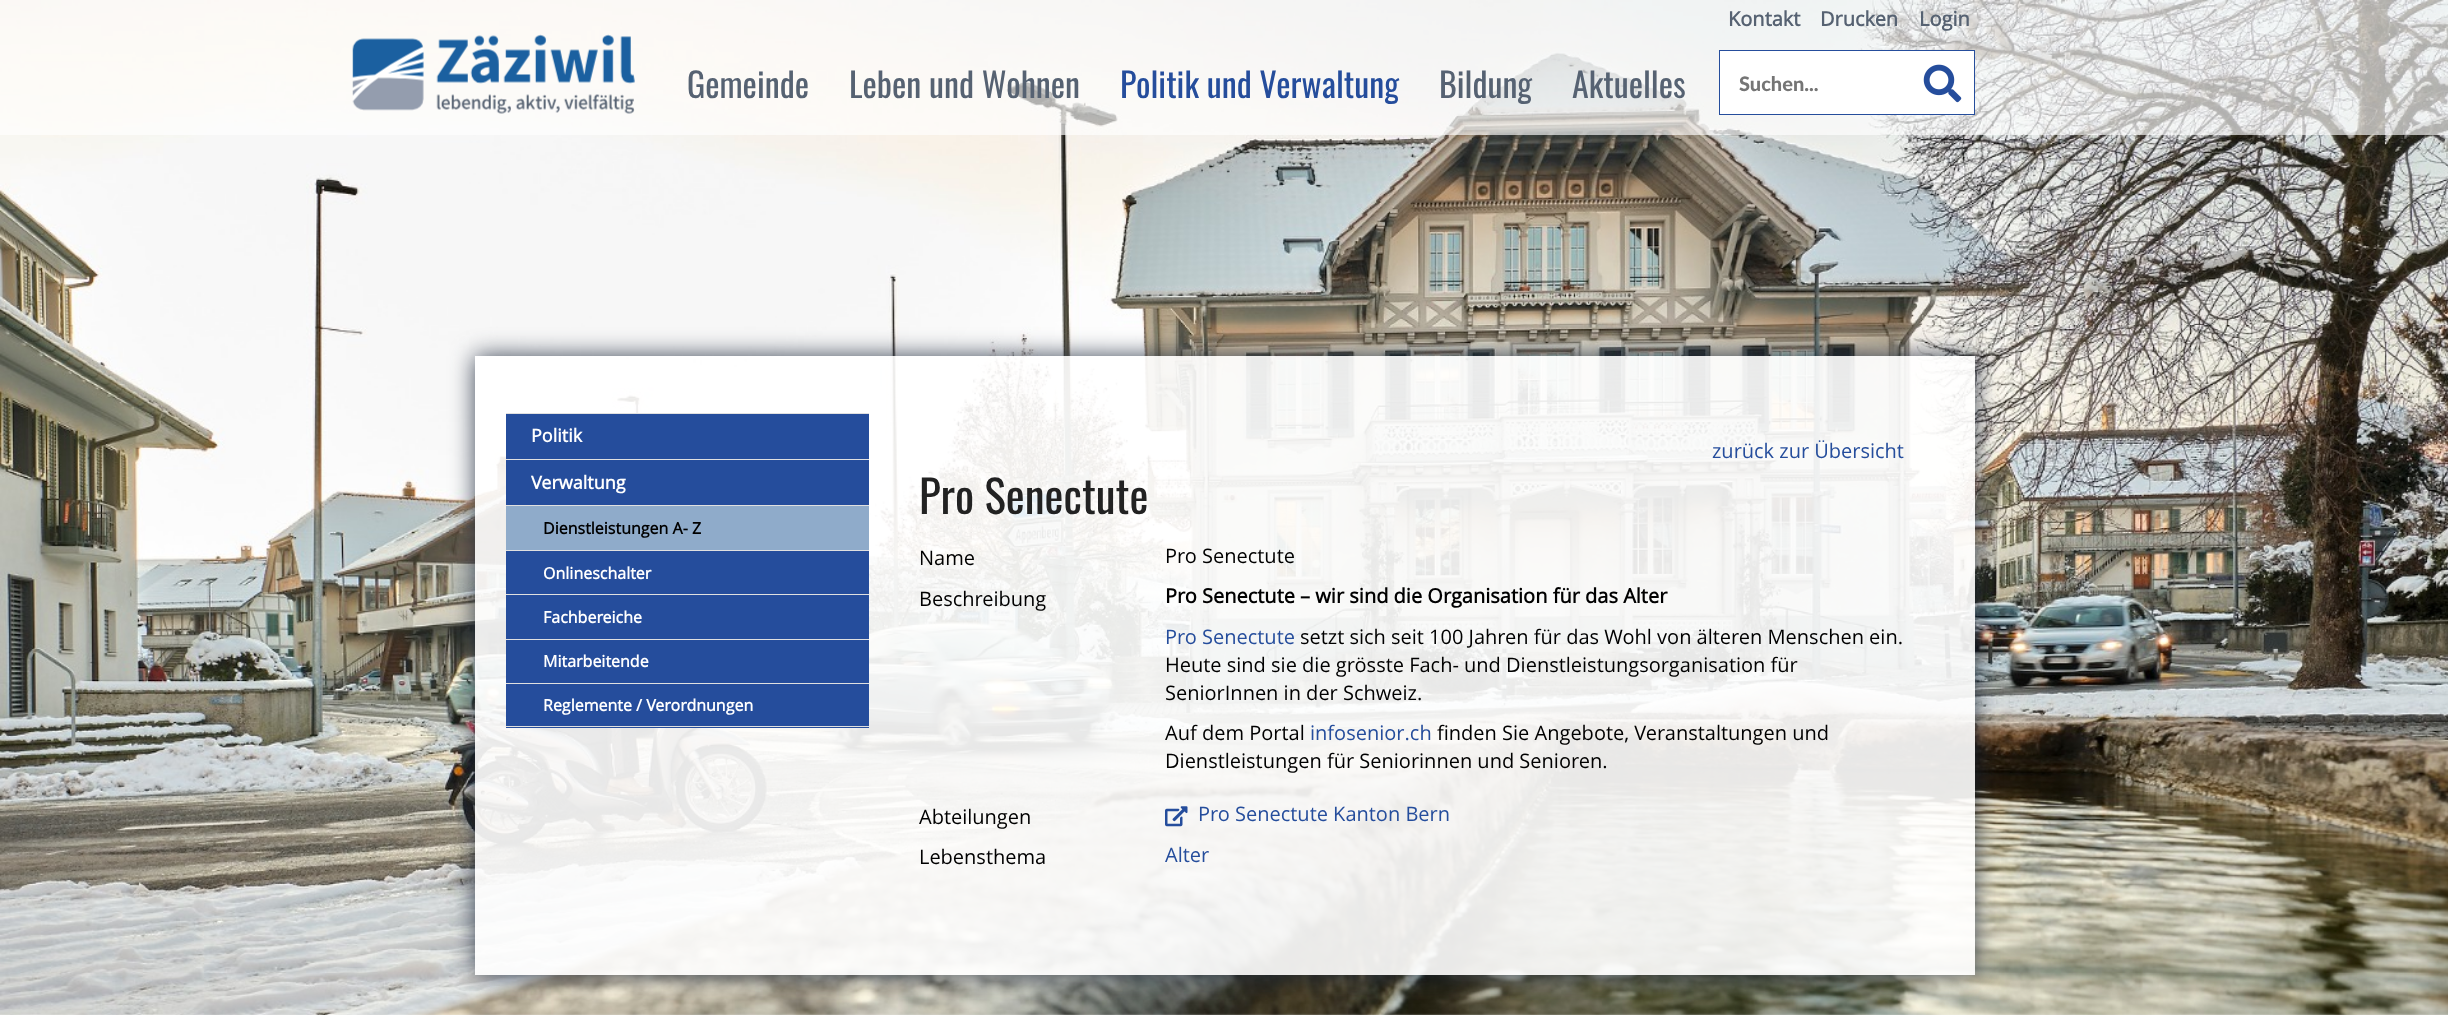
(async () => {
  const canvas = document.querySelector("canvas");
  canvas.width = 2448;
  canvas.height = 1015;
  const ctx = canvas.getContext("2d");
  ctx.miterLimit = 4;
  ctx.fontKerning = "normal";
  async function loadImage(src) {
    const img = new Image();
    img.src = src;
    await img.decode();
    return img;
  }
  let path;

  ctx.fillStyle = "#ffffff";
  ctx.fillRect(0, 0, 2448, 1015);
  ctx.drawImage(await loadImage("img/1.png"), 0, 0, 2448, 1015);
  ctx.fillStyle = "rgba(255, 255, 255, 0.65)";
  ctx.fillRect(0, 0, 2448, 135);
  ctx.drawImage(await loadImage("img/2.png"), 352, 34, 283, 80);
  ctx.strokeStyle = "#254d9c";
  ctx.strokeRect(1719.5, 50.5, 255, 64);
  ctx.fillStyle = "#ffffff";
  ctx.fillRect(1720, 51, 254, 63);
  ctx.drawImage(await loadImage("img/3.png"), 1923, 64, 39, 39);
  ctx.save();
  path = new Path2D("M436 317H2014V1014H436ZM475 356H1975V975H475Z");
  ctx.clip(path, "evenodd");
  ctx.fillStyle = "rgba(22, 33, 54, 0.84)";
  ctx.filter = "blur(12.5px)";
  ctx.beginPath();
  ctx.rect(475, 356, 1500, 619);
  ctx.fill();
  ctx.filter = "none";
  ctx.restore();
  for (const [x, y, w, h, color] of [
    [475, 356, 1500, 619, "rgba(255, 255, 255, 0.9)"],
    [506, 413, 363, 1, "#e0e0e0"],
    [506, 414, 363, 45, "#254d9c"],
    [506, 459, 363, 1, "#e0e0e0"],
    [506, 460, 363, 45, "#254d9c"],
    [506, 505, 363, 1, "#e0e0e0"],
    [506, 506, 363, 44, "#8fabca"],
    [506, 550, 363, 1, "#e0e0e0"],
    [506, 551, 363, 43, "#254d9c"],
    [506, 594, 363, 1, "#e0e0e0"],
    [506, 595, 363, 44, "#254d9c"],
    [506, 639, 363, 1, "#e0e0e0"],
    [506, 640, 363, 43, "#254d9c"],
    [506, 683, 363, 1, "#e0e0e0"],
    [506, 684, 363, 44, "#254d9c"],
    [506, 726, 363, 1, "#e0e0e0"],
  ]) {
    ctx.fillStyle = color;
    ctx.fillRect(x, y, w, h);
  }
  ctx.drawImage(await loadImage("img/4.png"), 1165, 806, 23, 21);
  ctx.font = "bold 20px Open Sans";
  ctx.fillStyle = "#566272";
  for (const [text, x, y] of [
    ["Kontakt", 1728, 26],
    ["Drucken", 1820, 26],
    ["Login", 1919, 26],
  ]) {
    ctx.fillText(text, x, y);
  }
  ctx.font = "34px Oswald";
  ctx.fillText("Gemeinde", 687, 98);
  ctx.fillText("Leben und Wohnen", 849, 98);
  ctx.fillStyle = "#254d9c";
  ctx.fillText("Politik und Verwaltung", 1120, 98);
  ctx.fillStyle = "#566272";
  ctx.fillText("Bildung", 1439, 98);
  ctx.fillText("Aktuelles", 1572, 98);
  ctx.font = "900 20px Lato";
  ctx.fillStyle = "#757575";
  ctx.fillText("Suchen...", 1739, 91);
  ctx.font = "bold 18px Open Sans";
  ctx.fillStyle = "#ffffff";
  ctx.fillText("Politik", 531, 442);
  ctx.fillText("Verwaltung", 531, 489);
  ctx.font = "bold 16px Open Sans";
  ctx.fillStyle = "#000000";
  ctx.fillText("Dienstleistungen A- Z", 543, 534);
  ctx.fillStyle = "#ffffff";
  for (const [text, x, y] of [
    ["Onlineschalter", 543, 579],
    ["Fachbereiche", 543, 623],
    ["Mitarbeitende", 543, 667],
    ["Reglemente / Verordnungen", 543, 711],
  ]) {
    ctx.fillText(text, x, y);
  }
  ctx.font = "20px Open Sans";
  ctx.fillStyle = "#254d9c";
  ctx.fillText("zurück zur Übersicht", 1712, 458);
  ctx.font = "45px Oswald";
  ctx.fillStyle = "#222222";
  ctx.fillText("Pro Senectute", 919, 514);
  ctx.font = "20px Open Sans";
  ctx.fillStyle = "#000000";
  for (const [text, x, y] of [
    ["Name", 919, 565],
    ["Pro Senectute", 1165, 563],
    ["Beschreibung", 919, 606],
  ]) {
    ctx.fillText(text, x, y);
  }
  ctx.font = "bold 20px Open Sans";
  ctx.fillText("Pro Senectute – wir sind die Organisation für das Alter", 1165, 603);
  ctx.font = "20px Open Sans";
  ctx.fillStyle = "#254d9c";
  ctx.fillText("Pro Senectute", 1165, 644);
  ctx.fillStyle = "#000000";
  for (const [text, x, y] of [
    ["setzt sich seit 100 Jahren für das Wohl von älteren Menschen ein.", 1300, 644],
    ["Heute sind sie die grösste Fach- und Dienstleistungsorganisation für", 1165, 672],
    ["SeniorInnen in der Schweiz.", 1165, 700],
    ["Auf dem Portal", 1165, 740],
  ]) {
    ctx.fillText(text, x, y);
  }
  ctx.fillStyle = "#254d9c";
  ctx.fillText("infosenior.ch", 1310, 740);
  ctx.fillStyle = "#000000";
  for (const [text, x, y] of [
    ["finden Sie Angebote, Veranstaltungen und", 1437, 740],
    ["Dienstleistungen für Seniorinnen und Senioren.", 1165, 768],
    ["Abteilungen", 919, 824],
  ]) {
    ctx.fillText(text, x, y);
  }
  ctx.fillStyle = "#254d9c";
  ctx.fillText("Pro Senectute Kanton Bern", 1198, 821);
  ctx.fillStyle = "#000000";
  ctx.fillText("Lebensthema", 919, 864);
  ctx.fillStyle = "#254d9c";
  ctx.fillText("Alter", 1165, 862);
})();
